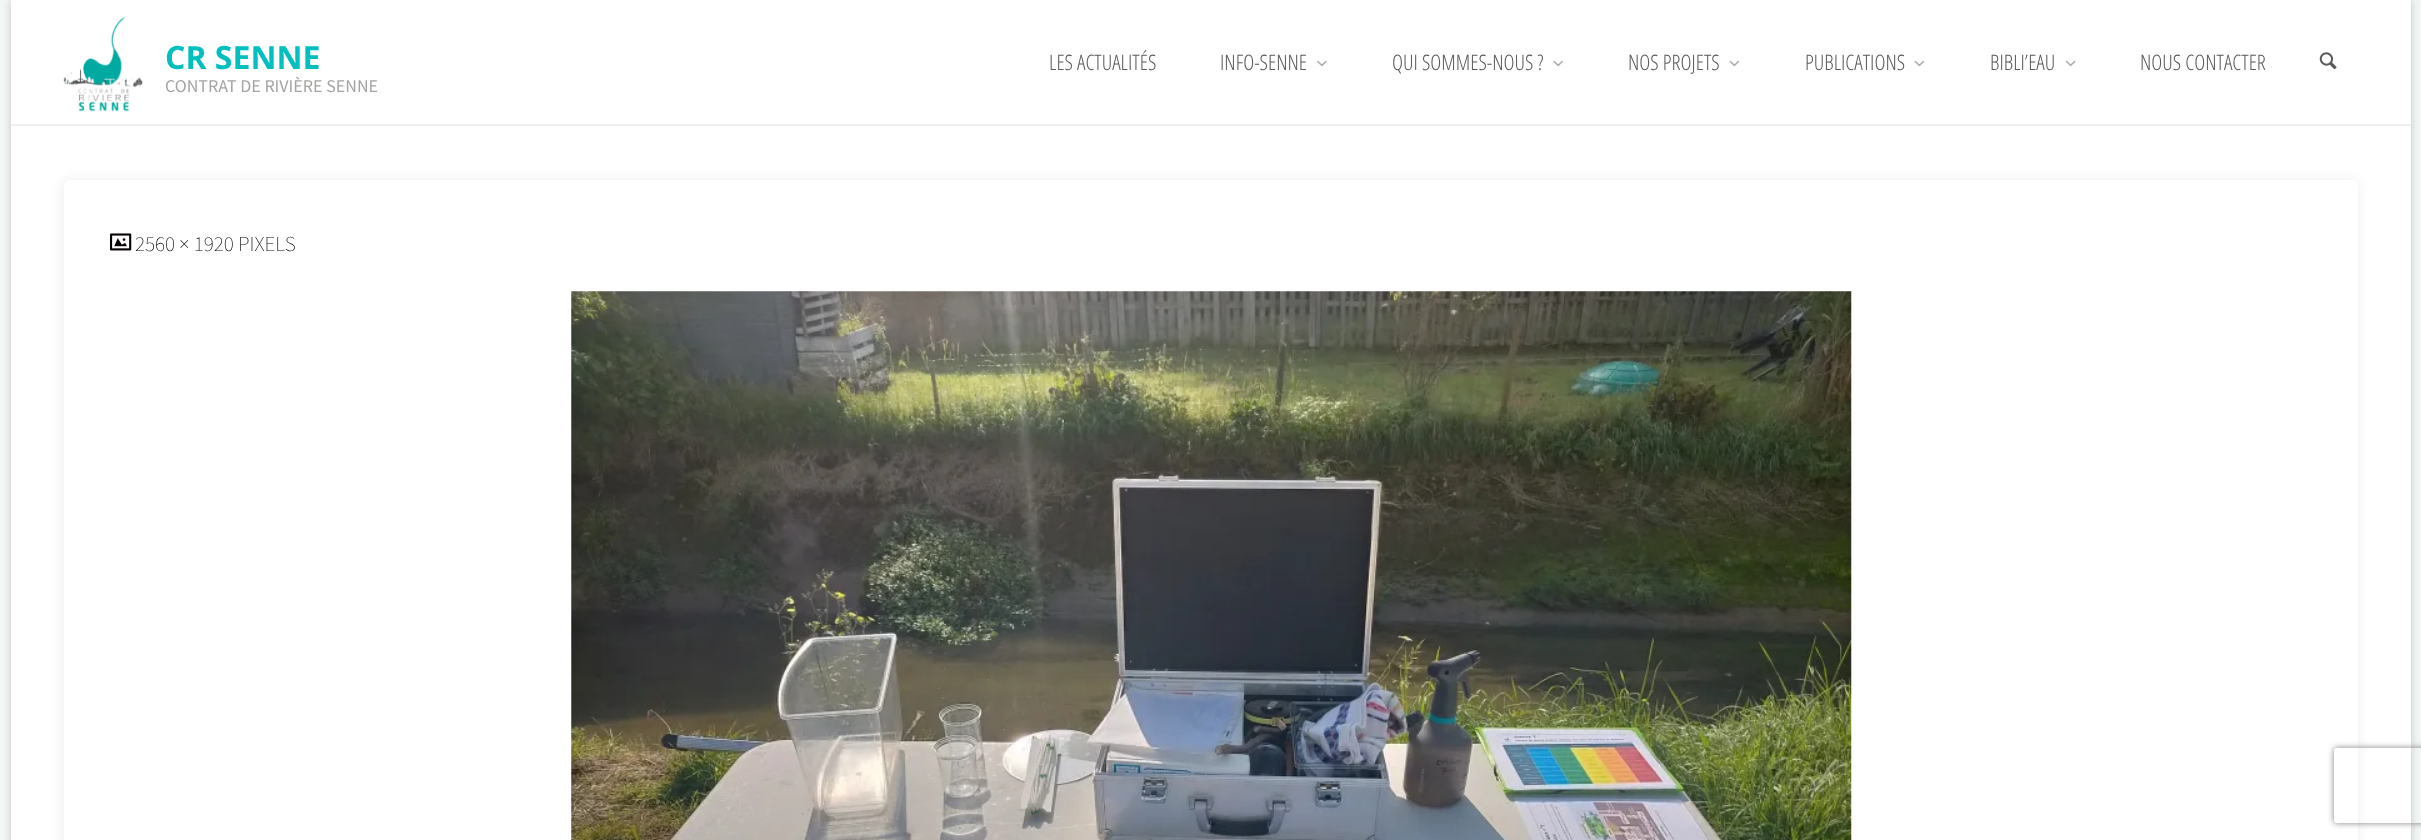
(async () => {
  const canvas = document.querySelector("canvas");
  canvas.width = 2421;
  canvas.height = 840;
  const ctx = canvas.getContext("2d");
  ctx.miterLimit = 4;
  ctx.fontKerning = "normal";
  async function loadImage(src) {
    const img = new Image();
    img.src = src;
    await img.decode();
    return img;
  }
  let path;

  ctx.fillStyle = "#f3f7f5";
  ctx.fillRect(0, 0, 2421, 840);
  ctx.fillStyle = "rgba(0, 0, 0, 0.2)";
  ctx.filter = "blur(5px)";
  ctx.beginPath();
  ctx.rect(11, 0, 2400, 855);
  ctx.fill();
  ctx.filter = "none";
  for (const [x, y, w, h, color] of [
    [11, 125, 2400, 1, "#eeeeee"],
    [11, 0, 2400, 124, "#ffffff"],
    [11, 124, 2400, 1, "#f2f2f2"],
  ]) {
    ctx.fillStyle = color;
    ctx.fillRect(x, y, w, h);
  }
  ctx.drawImage(await loadImage("img/1.png"), 63, 17, 80, 95);
  ctx.drawImage(await loadImage("img/2.png"), 1317, 60, 10, 7);
  ctx.drawImage(await loadImage("img/3.png"), 1553, 60, 10, 7);
  ctx.drawImage(await loadImage("img/4.png"), 1729, 60, 11, 7);
  ctx.drawImage(await loadImage("img/4.png"), 1914, 60, 11, 7);
  ctx.drawImage(await loadImage("img/5.png"), 2065, 60, 11, 7);
  ctx.drawImage(await loadImage("img/6.png"), 2319, 52, 18, 18);
  ctx.fillStyle = "#ffffff";
  ctx.fillRect(11, 126, 2400, 714);
  ctx.fillStyle = "rgba(0, 0, 0, 0.05)";
  ctx.filter = "blur(5.5px)";
  ctx.beginPath();
  ctx.roundRect(61, 178, 2299, 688, 9);
  ctx.fill();
  ctx.filter = "none";
  ctx.fillStyle = "#ffffff";
  ctx.beginPath();
  ctx.roundRect(64, 180, 2294, 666, 6);
  ctx.fill();
  ctx.drawImage(await loadImage("img/7.png"), 110, 233, 22, 18);
  ctx.drawImage(await loadImage("img/8.png"), 571, 291, 1281, 549);
  ctx.save();
  path = new Path2D("M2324 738H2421V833H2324ZM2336.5 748H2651.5C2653 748 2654 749 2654 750.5V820.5C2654 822 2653 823 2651.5 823H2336.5C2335 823 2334 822 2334 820.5V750.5C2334 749 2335 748 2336.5 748Z");
  ctx.clip(path, "evenodd");
  ctx.fillStyle = "#808080";
  ctx.filter = "blur(3px)";
  ctx.beginPath();
  ctx.roundRect(2334, 748, 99, 75, 2.5);
  ctx.fill();
  ctx.filter = "none";
  ctx.restore();
  ctx.font = "bold 32px Open Sans";
  ctx.fillStyle = "#00bfbf";
  ctx.fillText("CR SENNE", 165, 69);
  ctx.font = "18px Source Sans Pro";
  ctx.fillStyle = "#a6a4a3";
  ctx.fillText("CONTRAT DE RIVIÈRE SENNE", 165, 92);
  ctx.font = "300 21.25px Open Sans Condensed";
  ctx.fillStyle = "#595959";
  for (const [text, x, y] of [
    ["LES ACTUALITÉS", 1049, 70],
    ["INFO-SENNE", 1220, 70],
    ["QUI SOMMES-NOUS ?", 1392, 70],
    ["NOS PROJETS", 1628, 70],
    ["PUBLICATIONS", 1805, 70],
    ["BIBLI’EAU", 1990, 70],
    ["NOUS CONTACTER", 2140, 70],
  ]) {
    ctx.fillText(text, x, y);
  }
  ctx.font = "200 21.25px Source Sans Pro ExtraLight";
  ctx.fillStyle = "#080302";
  ctx.fillText("2560 × 1920 PIXELS", 135, 251);
})();
